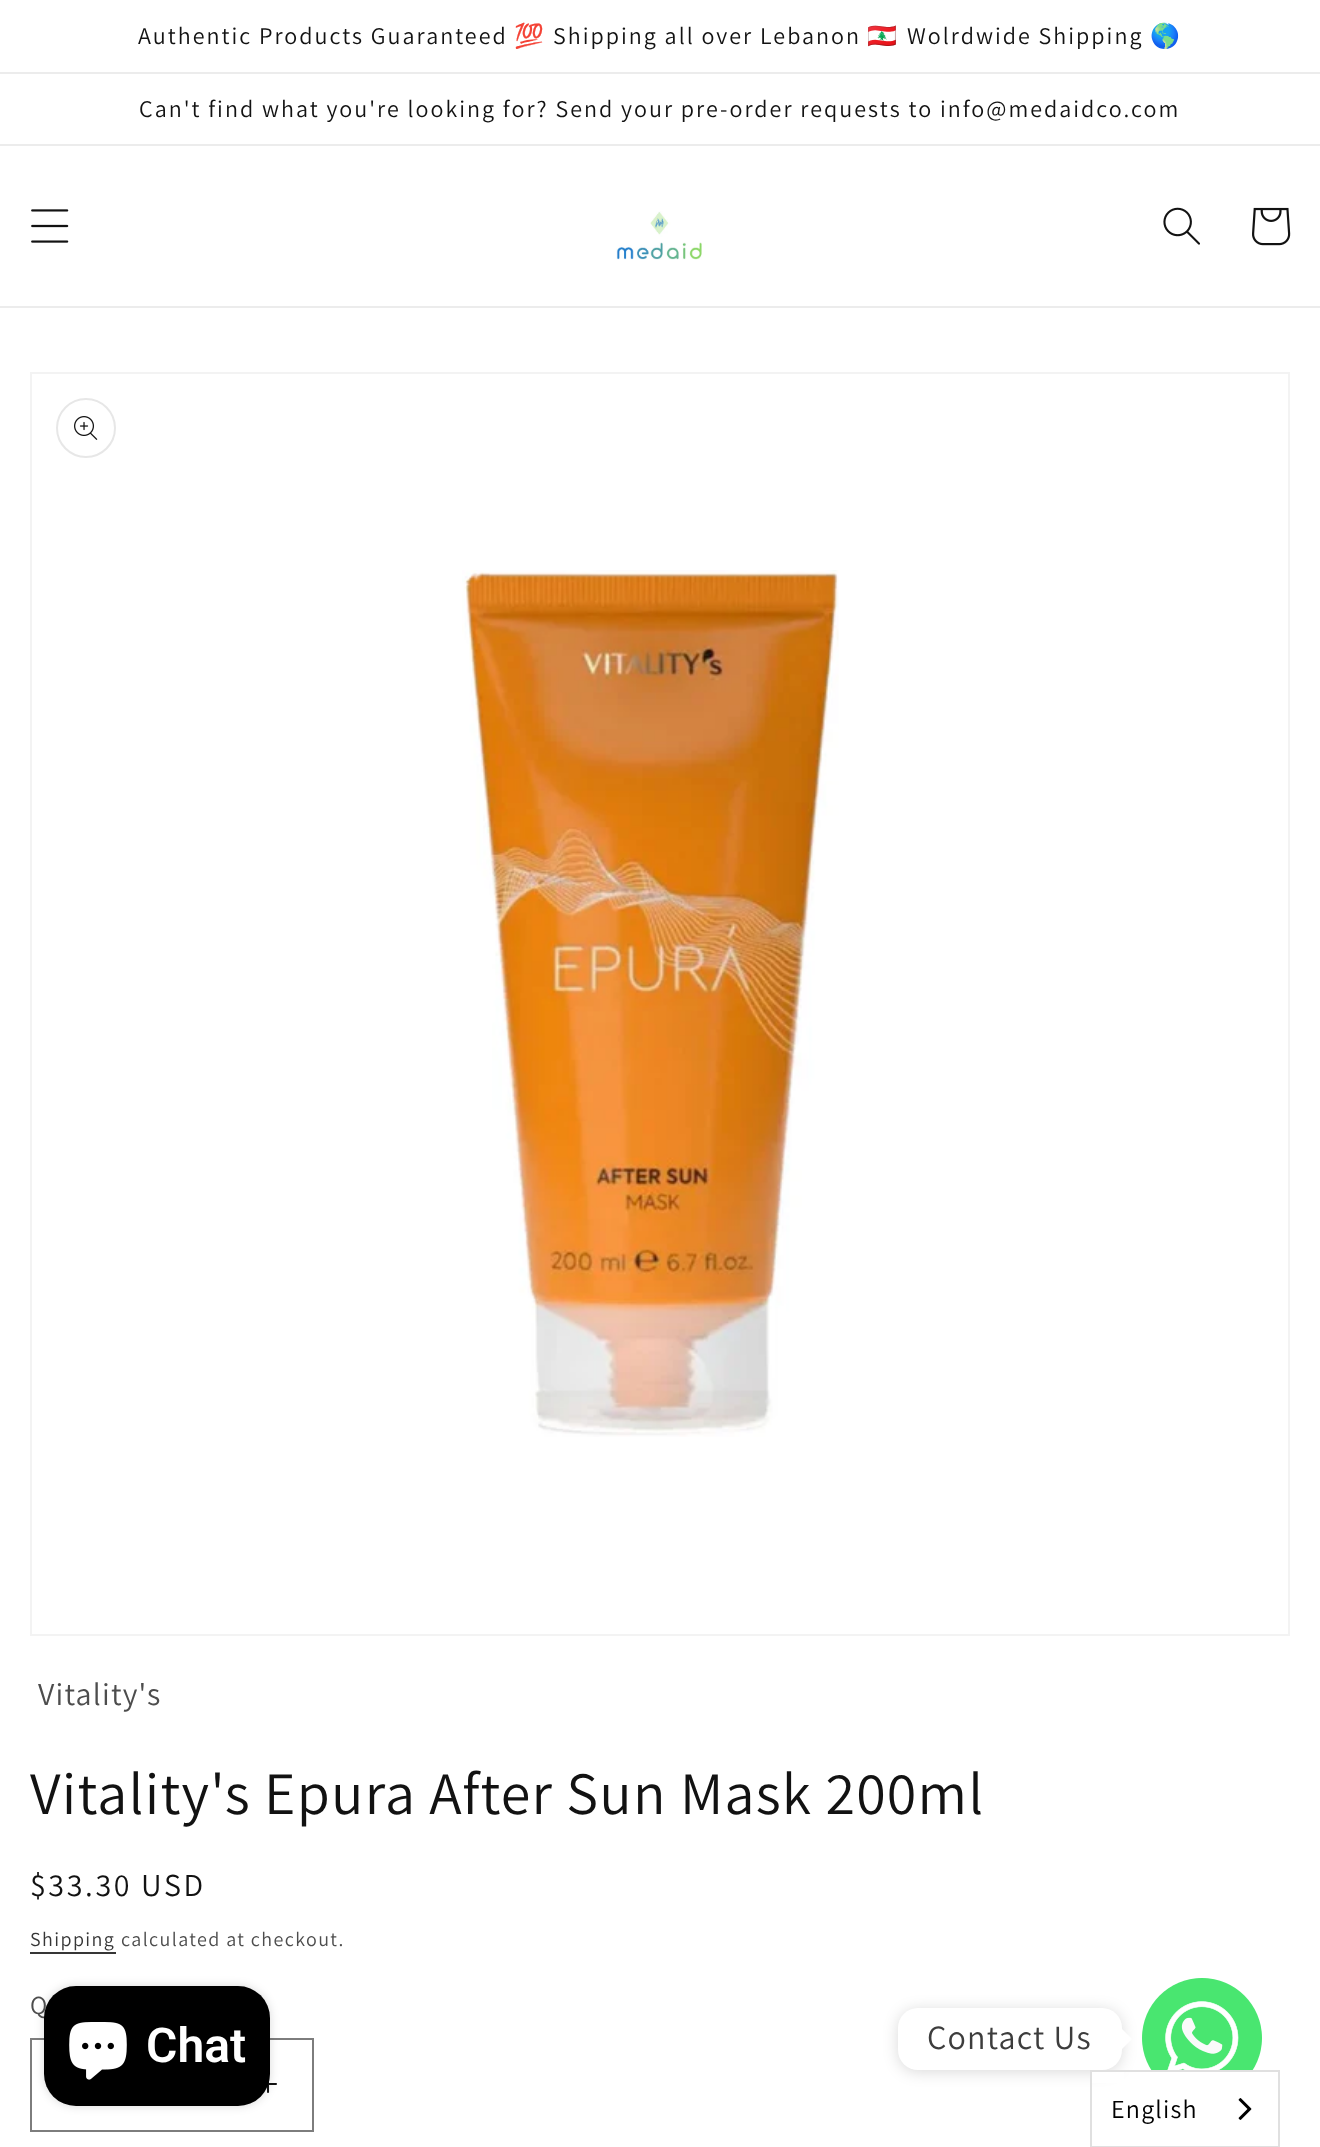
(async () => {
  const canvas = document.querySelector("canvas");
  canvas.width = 1320;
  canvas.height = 2147;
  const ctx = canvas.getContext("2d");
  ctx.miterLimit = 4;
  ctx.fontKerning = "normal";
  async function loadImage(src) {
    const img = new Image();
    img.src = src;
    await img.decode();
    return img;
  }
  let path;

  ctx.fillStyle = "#ffffff";
  ctx.fillRect(0, 0, 1320, 2147);
  for (const [x, y, w, h, color] of [
    [0, 72, 1320, 2, "#ececec"],
    [0, 144, 1320, 2, "#ececec"],
    [0, 306, 1320, 2, "#ececec"],
  ]) {
    ctx.fillStyle = color;
    ctx.fillRect(x, y, w, h);
  }
  ctx.drawImage(await loadImage("img/1.png"), 31, 209, 38, 34);
  ctx.drawImage(await loadImage("img/2.png"), 616, 211, 86, 49);
  ctx.drawImage(await loadImage("img/3.png"), 1163, 207, 37, 38);
  ctx.drawImage(await loadImage("img/4.png"), 1252, 207, 39, 39);
  ctx.strokeStyle = "#f3f3f3";
  ctx.lineWidth = 2;
  ctx.strokeRect(31, 373, 1258, 1262);
  ctx.drawImage(await loadImage("img/5.png"), 462, 570, 377, 867);
  ctx.beginPath();
  ctx.arc(86, 428, 29, 0, Math.PI * 2);
  ctx.strokeStyle = "#e7e7e7";
  ctx.stroke();
  ctx.drawImage(await loadImage("img/6.png"), 74, 416, 24, 24);
  ctx.fillStyle = "#363636";
  ctx.fillRect(30, 1952, 86, 2);
  ctx.drawImage(await loadImage("img/7.png"), 267, 2081, 10, 12);
  ctx.strokeStyle = "#7d7d7d";
  ctx.strokeRect(31, 2039, 282, 92);
  ctx.fillStyle = "rgba(0, 0, 0, 0.15)";
  ctx.filter = "blur(5px)";
  ctx.beginPath();
  ctx.roundRect(44, 1986, 226, 120, 32);
  ctx.fill();
  ctx.filter = "none";
  ctx.drawImage(await loadImage("img/9.png"), 1142, 1978, 120, 92);
  ctx.filter = "blur(7.5px)";
  ctx.beginPath();
  ctx.roundRect(898, 2010, 224, 62, 20);
  ctx.fill();
  ctx.filter = "none";
  ctx.fillStyle = "#ffffff";
  ctx.beginPath();
  ctx.roundRect(898, 2008, 224, 62, 20);
  ctx.fill();
  path = new Path2D("M1122 2049V2029L1132 2039Z");
  ctx.fill(path);
  ctx.fillRect(1092, 2072, 32, 11);
  ctx.strokeStyle = "#e0e0e0";
  ctx.strokeRect(1091, 2071, 188, 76);
  ctx.drawImage(await loadImage("img/10.png"), 1238, 2098, 14, 22);
  ctx.letterSpacing = "2px";
  ctx.font = "24px Assistant";
  ctx.fillStyle = "#121212";
  ctx.fillText("Authentic Products Guaranteed", 138, 44);
  ctx.font = "24px Noto Color Emoji";
  ctx.fillText("💯", 514, 44);
  ctx.font = "24px Assistant";
  ctx.fillText("Shipping all over Lebanon", 553, 44);
  ctx.font = "24px Noto Color Emoji";
  ctx.fillText("🇱🇧", 867, 44);
  ctx.font = "24px Assistant";
  ctx.fillText("Wolrdwide Shipping", 907, 44);
  ctx.font = "24px Noto Color Emoji";
  ctx.fillText("🌎", 1150, 44);
  ctx.font = "24px Assistant";
  ctx.fillText("Can't find what you're looking for? Send your pre-order requests to info@medaidco.com", 139, 117);
  ctx.letterSpacing = "1.2px";
  ctx.font = "32px Assistant";
  ctx.fillStyle = "#4d4d4d";
  ctx.fillText("Vitality's", 38, 1705);
  ctx.font = "60px Assistant";
  ctx.fillStyle = "#121212";
  ctx.fillText("Vitality's Epura After Sun Mask 200ml", 30, 1814);
  ctx.letterSpacing = "2.6px";
  ctx.font = "32px Assistant";
  ctx.fillText("$33.30 USD", 30, 1896);
  ctx.letterSpacing = "1.4px";
  ctx.font = "20px Assistant";
  ctx.fillStyle = "#363636";
  ctx.fillText("Shipping", 30, 1946);
  ctx.fillStyle = "#4d4d4d";
  ctx.fillText("calculated at checkout.", 121, 1946);
  ctx.letterSpacing = "1px";
  ctx.font = "26px Assistant";
  ctx.fillText("Q", 30, 2014);
  ctx.fillStyle = "#000000";
  ctx.beginPath();
  ctx.roundRect(44, 1986, 226, 120, 32);
  ctx.fill();
  ctx.drawImage(await loadImage("img/8.png"), 69, 2022, 58, 58);
  ctx.letterSpacing = "0px";
  ctx.font = "600 48px Roboto";
  ctx.fillStyle = "#ffffff";
  ctx.fillText("Chat", 146, 2062);
  ctx.letterSpacing = "1.2px";
  ctx.font = "34px Assistant";
  ctx.fillStyle = "#3d3d3d";
  ctx.fillText("Contact Us", 927, 2049);
  ctx.font = "26px Assistant";
  ctx.fillStyle = "#000000";
  ctx.fillText("English", 1111, 2118);
})();
